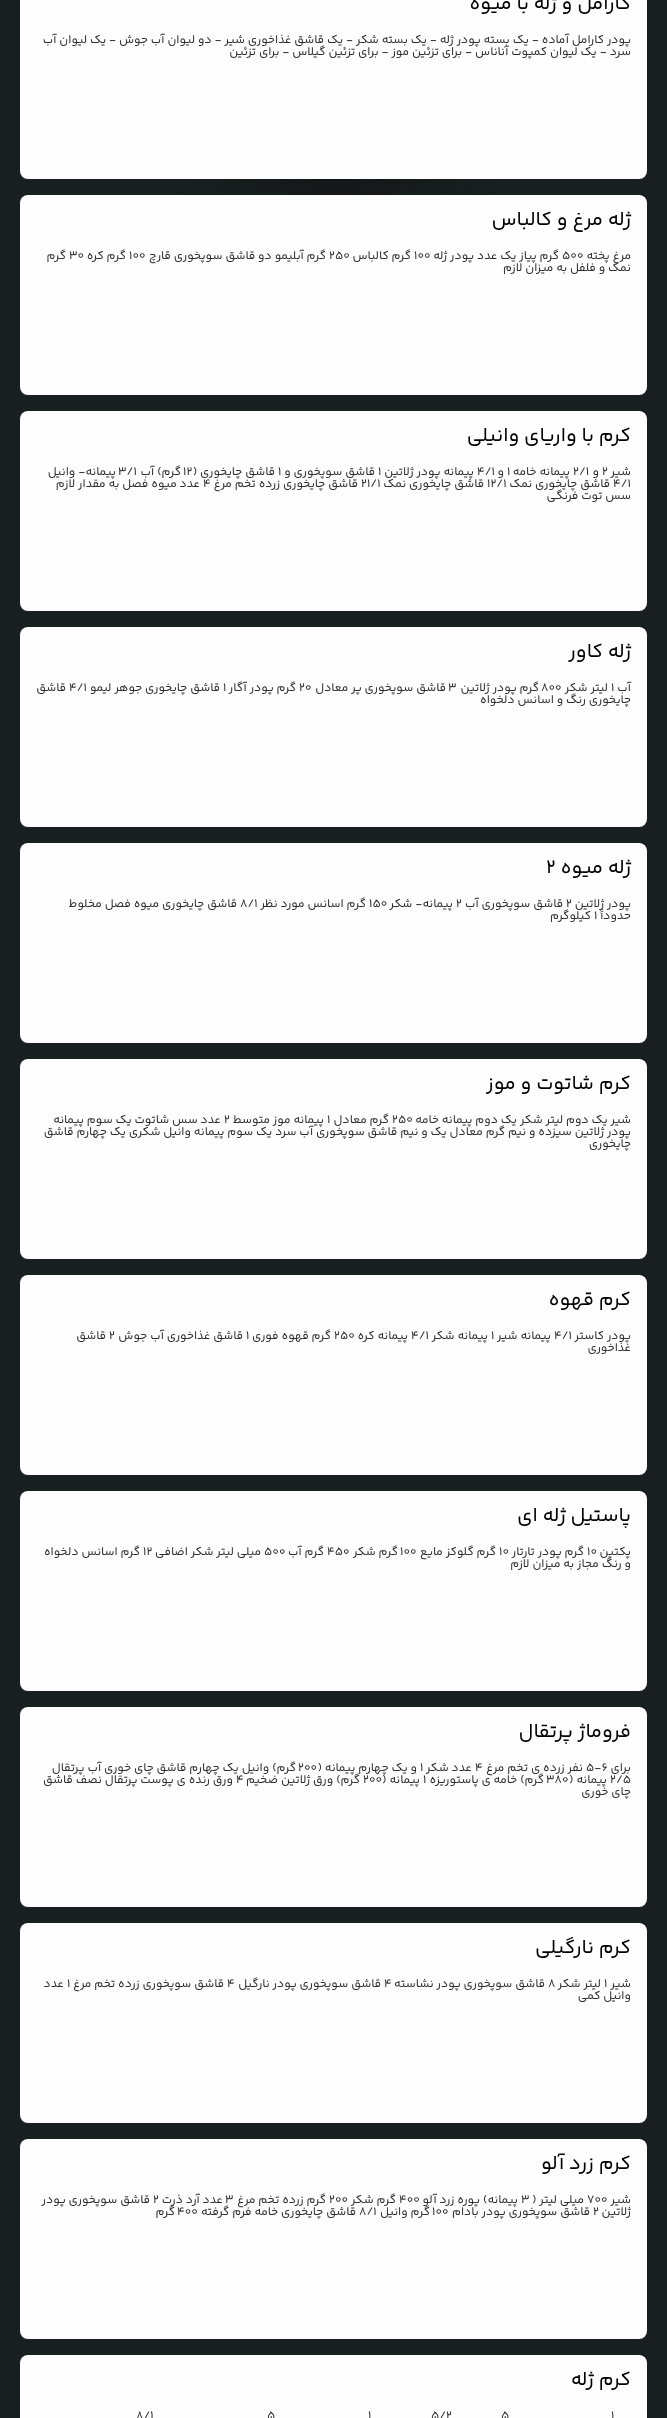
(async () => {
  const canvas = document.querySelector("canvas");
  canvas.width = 667;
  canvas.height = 2418;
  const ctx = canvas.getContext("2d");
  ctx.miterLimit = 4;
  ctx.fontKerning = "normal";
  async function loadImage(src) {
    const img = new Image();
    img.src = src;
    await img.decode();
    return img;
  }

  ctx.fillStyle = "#191f20";
  ctx.fillRect(0, 0, 667, 2418);
  ctx.drawImage(await loadImage("img/1.png"), 175, 179, 317, 16);
  ctx.fillStyle = "#fefefe";
  ctx.beginPath();
  ctx.roundRect(20, -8, 627, 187, 8);
  ctx.fill();
  ctx.beginPath();
  ctx.roundRect(20, 195, 627, 200, 8);
  ctx.fill();
  ctx.beginPath();
  ctx.roundRect(20, 411, 627, 200, 8);
  ctx.fill();
  ctx.beginPath();
  ctx.roundRect(20, 627, 627, 200, 8);
  ctx.fill();
  ctx.beginPath();
  ctx.roundRect(20, 843, 627, 200, 8);
  ctx.fill();
  ctx.beginPath();
  ctx.roundRect(20, 1059, 627, 200, 8);
  ctx.fill();
  ctx.beginPath();
  ctx.roundRect(20, 1275, 627, 200, 8);
  ctx.fill();
  ctx.beginPath();
  ctx.roundRect(20, 1491, 627, 200, 8);
  ctx.fill();
  ctx.beginPath();
  ctx.roundRect(20, 1707, 627, 200, 8);
  ctx.fill();
  ctx.beginPath();
  ctx.roundRect(20, 1923, 627, 200, 8);
  ctx.fill();
  ctx.beginPath();
  ctx.roundRect(20, 2139, 627, 200, 8);
  ctx.fill();
  ctx.beginPath();
  ctx.roundRect(20, 2355, 627, 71, 8);
  ctx.fill();
  ctx.direction = "rtl";
  ctx.font = "20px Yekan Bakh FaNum";
  ctx.fillStyle = "#000000";
  ctx.fillText("کارامل و ژله با میوه", 631, 9);
  ctx.font = "12px Yekan Bakh FaNum";
  ctx.fillStyle = "#2e2e2e";
  ctx.fillText("پودر کارامل آماده - یک بسته پودر ژله - یک بسته شکر - یک قاشق غذاخوری شیر - دو لیوان آب جوش - یک لیوان آب", 631, 43);
  ctx.fillText("سرد - یک لیوان کمپوت آناناس - برای تزئین موز - برای تزئین گیلاس - برای تزئین", 631, 55);
  ctx.font = "20px Yekan Bakh FaNum";
  ctx.fillStyle = "#000000";
  ctx.fillText("ژله مرغ و کالباس", 631, 225);
  ctx.font = "12px Yekan Bakh FaNum";
  ctx.fillStyle = "#2e2e2e";
  ctx.fillText("مرغ پخته", 631, 259);
  ctx.direction = "ltr";
  ctx.fillText("۵۰۰", 562, 259);
  ctx.direction = "rtl";
  ctx.fillText("گرم پیاز یک عدد پودر ژله", 559, 259);
  ctx.direction = "ltr";
  ctx.fillText("۱۰۰", 414, 259);
  ctx.direction = "rtl";
  ctx.fillText("گرم کالباس", 411, 259);
  ctx.direction = "ltr";
  ctx.fillText("۲۵۰", 329, 259);
  ctx.direction = "rtl";
  ctx.fillText("گرم آبلیمو دو قاشق سوپخوری قارچ", 326, 259);
  ctx.direction = "ltr";
  ctx.fillText("۱۰۰", 129, 259);
  ctx.direction = "rtl";
  ctx.fillText("گرم کره", 126, 259);
  ctx.direction = "ltr";
  ctx.fillText("۳۰", 69, 259);
  ctx.direction = "rtl";
  ctx.fillText("گرم", 66, 259);
  ctx.fillText("نمک و فلفل به میزان لازم", 631, 271);
  ctx.font = "20px Yekan Bakh FaNum";
  ctx.fillStyle = "#000000";
  ctx.fillText("کرم با واریای وانیلی", 631, 441);
  ctx.font = "12px Yekan Bakh FaNum";
  ctx.fillStyle = "#2e2e2e";
  ctx.fillText("شیر", 631, 475);
  ctx.direction = "ltr";
  ctx.fillText("۲", 602, 475);
  ctx.direction = "rtl";
  ctx.fillText("و", 599, 475);
  ctx.direction = "ltr";
  ctx.fillText("۲/۱", 573, 475);
  ctx.direction = "rtl";
  ctx.fillText("پیمانه خامه", 570, 475);
  ctx.direction = "ltr";
  ctx.fillText("۱", 507, 475);
  ctx.direction = "rtl";
  ctx.fillText("و", 504, 475);
  ctx.direction = "ltr";
  ctx.fillText("۴/۱", 477, 475);
  ctx.direction = "rtl";
  ctx.fillText("پیمانه پودر ژلاتین", 474, 475);
  ctx.direction = "ltr";
  ctx.fillText("۱", 378, 475);
  ctx.direction = "rtl";
  ctx.fillText("قاشق سوپخوری و", 375, 475);
  ctx.direction = "ltr";
  ctx.fillText("۱", 278, 475);
  ctx.direction = "rtl";
  ctx.fillText("قاشق چایخوری (", 275, 475);
  ctx.direction = "ltr";
  ctx.fillText("۱۲", 183, 475);
  ctx.direction = "rtl";
  ctx.fillText("گرم) آب", 181, 475);
  ctx.direction = "ltr";
  ctx.fillText("۳/۱", 118, 475);
  ctx.direction = "rtl";
  ctx.fillText("پیمانه- وانیل", 116, 475);
  ctx.direction = "ltr";
  ctx.fillText("۴/۱", 613, 487);
  ctx.direction = "rtl";
  ctx.fillText("قاشق چایخوری نمک", 610, 487);
  ctx.direction = "ltr";
  ctx.fillText("۱۲/۱", 487, 487);
  ctx.direction = "rtl";
  ctx.fillText("قاشق چایخوری نمک", 484, 487);
  ctx.direction = "ltr";
  ctx.fillText("۲۱/۱", 361, 487);
  ctx.direction = "rtl";
  ctx.fillText("قاشق چایخوری زرده تخم مرغ", 358, 487);
  ctx.direction = "ltr";
  ctx.fillText("۴", 203, 487);
  ctx.direction = "rtl";
  ctx.fillText("عدد میوه فصل به مقدار لازم", 200, 487);
  ctx.fillText("سس توت فرنگی", 631, 499);
  ctx.font = "20px Yekan Bakh FaNum";
  ctx.fillStyle = "#000000";
  ctx.fillText("ژله کاور", 631, 657);
  ctx.font = "12px Yekan Bakh FaNum";
  ctx.fillStyle = "#2e2e2e";
  ctx.fillText("آب", 631, 691);
  ctx.direction = "ltr";
  ctx.fillText("۱", 611, 691);
  ctx.direction = "rtl";
  ctx.fillText("لیتر شکر", 608, 691);
  ctx.direction = "ltr";
  ctx.fillText("۸۰۰", 541, 691);
  ctx.direction = "rtl";
  ctx.fillText("گرم پودر ژلاتین", 539, 691);
  ctx.direction = "ltr";
  ctx.fillText("۳", 448, 691);
  ctx.direction = "rtl";
  ctx.fillText("قاشق سوپخوری پر معادل", 446, 691);
  ctx.direction = "ltr";
  ctx.fillText("۲۰", 299, 691);
  ctx.direction = "rtl";
  ctx.fillText("گرم پودر آگار", 296, 691);
  ctx.direction = "ltr";
  ctx.fillText("۱", 223, 691);
  ctx.direction = "rtl";
  ctx.fillText("قاشق چایخوری جوهر لیمو", 220, 691);
  ctx.direction = "ltr";
  ctx.fillText("۴/۱", 69, 691);
  ctx.direction = "rtl";
  ctx.fillText("قاشق", 66, 691);
  ctx.fillText("چایخوری رنگ و اسانس دلخواه", 631, 703);
  ctx.font = "20px Yekan Bakh FaNum";
  ctx.fillStyle = "#000000";
  ctx.fillText("ژله میوه", 631, 873);
  ctx.direction = "ltr";
  ctx.fillText("۲", 546, 873);
  ctx.direction = "rtl";
  ctx.font = "12px Yekan Bakh FaNum";
  ctx.fillStyle = "#2e2e2e";
  ctx.fillText("پودر ژلاتین", 631, 907);
  ctx.direction = "ltr";
  ctx.fillText("۲", 566, 907);
  ctx.direction = "rtl";
  ctx.fillText("قاشق سوپخوری آب", 563, 907);
  ctx.direction = "ltr";
  ctx.fillText("۲", 456, 907);
  ctx.direction = "rtl";
  ctx.fillText("پیمانه- شکر", 453, 907);
  ctx.direction = "ltr";
  ctx.fillText("۱۵۰", 369, 907);
  ctx.direction = "rtl";
  ctx.fillText("گرم اسانس مورد نظر", 366, 907);
  ctx.direction = "ltr";
  ctx.fillText("۸/۱", 240, 907);
  ctx.direction = "rtl";
  ctx.fillText("قاشق چایخوری میوه فصل مخلوط", 237, 907);
  ctx.fillText("حدوداً", 631, 919);
  ctx.direction = "ltr";
  ctx.fillText("۱", 594, 919);
  ctx.direction = "rtl";
  ctx.fillText("کیلوگرم", 591, 919);
  ctx.font = "20px Yekan Bakh FaNum";
  ctx.fillStyle = "#000000";
  ctx.fillText("کرم شاتوت و موز", 631, 1089);
  ctx.font = "12px Yekan Bakh FaNum";
  ctx.fillStyle = "#2e2e2e";
  ctx.fillText("شیر یک دوم لیتر شکر یک دوم پیمانه خامه", 631, 1123);
  ctx.direction = "ltr";
  ctx.fillText("۲۵۰", 392, 1123);
  ctx.direction = "rtl";
  ctx.fillText("گرم معادل", 389, 1123);
  ctx.direction = "ltr";
  ctx.fillText("۱", 327, 1123);
  ctx.direction = "rtl";
  ctx.fillText("پیمانه موز متوسط", 324, 1123);
  ctx.direction = "ltr";
  ctx.fillText("۲", 224, 1123);
  ctx.direction = "rtl";
  for (const [text, x, y] of [
    ["عدد سس شاتوت یک سوم پیمانه", 221, 1123],
    ["پودر ژلاتین سیزده و نیم گرم معادل یک و نیم قاشق سوپخوری آب سرد یک سوم پیمانه وانیل شکری یک چهارم قاشق", 631, 1135],
    ["چایخوری", 631, 1147],
  ]) {
    ctx.fillText(text, x, y);
  }
  ctx.font = "20px Yekan Bakh FaNum";
  ctx.fillStyle = "#000000";
  ctx.fillText("کرم قهوه", 631, 1305);
  ctx.font = "12px Yekan Bakh FaNum";
  ctx.fillStyle = "#2e2e2e";
  ctx.fillText("پودر کاستر", 631, 1339);
  ctx.direction = "ltr";
  ctx.fillText("۴/۱", 554, 1339);
  ctx.direction = "rtl";
  ctx.fillText("پیمانه شیر", 551, 1339);
  ctx.direction = "ltr";
  ctx.fillText("۱", 491, 1339);
  ctx.direction = "rtl";
  ctx.fillText("پیمانه شکر", 488, 1339);
  ctx.direction = "ltr";
  ctx.fillText("۴/۱", 411, 1339);
  ctx.direction = "rtl";
  ctx.fillText("پیمانه کره", 408, 1339);
  ctx.direction = "ltr";
  ctx.fillText("۲۵۰", 334, 1339);
  ctx.direction = "rtl";
  ctx.fillText("گرم قهوه فوری", 331, 1339);
  ctx.direction = "ltr";
  ctx.fillText("۱", 246, 1339);
  ctx.direction = "rtl";
  ctx.fillText("قاشق غذاخوری آب جوش", 243, 1339);
  ctx.direction = "ltr";
  ctx.fillText("۲", 109, 1339);
  ctx.direction = "rtl";
  ctx.fillText("قاشق", 106, 1339);
  ctx.fillText("غذاخوری", 631, 1351);
  ctx.font = "20px Yekan Bakh FaNum";
  ctx.fillStyle = "#000000";
  ctx.fillText("پاستیل ژله ای", 631, 1521);
  ctx.font = "12px Yekan Bakh FaNum";
  ctx.fillStyle = "#2e2e2e";
  ctx.fillText("پکتین", 631, 1555);
  ctx.direction = "ltr";
  ctx.fillText("۱۰", 587, 1555);
  ctx.direction = "rtl";
  ctx.fillText("گرم پودر تارتار", 584, 1555);
  ctx.direction = "ltr";
  ctx.fillText("۱۰", 499, 1555);
  ctx.direction = "rtl";
  ctx.fillText("گرم گلوکز مایع", 496, 1555);
  ctx.direction = "ltr";
  ctx.fillText("۱۰۰", 400, 1555);
  ctx.direction = "rtl";
  ctx.fillText("گرم شکر", 398, 1555);
  ctx.direction = "ltr";
  ctx.fillText("۴۵۰", 327, 1555);
  ctx.direction = "rtl";
  ctx.fillText("گرم آب", 324, 1555);
  ctx.direction = "ltr";
  ctx.fillText("۵۰۰", 264, 1555);
  ctx.direction = "rtl";
  ctx.fillText("میلی لیتر شکر اضافی", 261, 1555);
  ctx.direction = "ltr";
  ctx.fillText("۱۲", 143, 1555);
  ctx.direction = "rtl";
  ctx.fillText("گرم اسانس دلخواه", 140, 1555);
  ctx.fillText("و رنگ مجاز به میزان لازم", 631, 1567);
  ctx.font = "20px Yekan Bakh FaNum";
  ctx.fillStyle = "#000000";
  ctx.fillText("فروماژ پرتقال", 631, 1737);
  ctx.font = "12px Yekan Bakh FaNum";
  ctx.fillStyle = "#2e2e2e";
  ctx.fillText("برای", 631, 1771);
  ctx.direction = "ltr";
  ctx.fillText("۵-۶", 586, 1771);
  ctx.direction = "rtl";
  ctx.fillText("نفر زرده ی تخم مرغ", 583, 1771);
  ctx.direction = "ltr";
  ctx.fillText("۴", 475, 1771);
  ctx.direction = "rtl";
  ctx.fillText("عدد شکر", 472, 1771);
  ctx.direction = "ltr";
  ctx.fillText("۱", 420, 1771);
  ctx.direction = "rtl";
  ctx.fillText("و یک چهارم پیمانه (", 417, 1771);
  ctx.direction = "ltr";
  ctx.fillText("۲۰۰", 298, 1771);
  ctx.direction = "rtl";
  ctx.fillText("گرم) وانیل یک چهارم قاشق چای خوری آب پرتقال", 296, 1771);
  ctx.direction = "ltr";
  ctx.fillText("۲/۵", 610, 1783);
  ctx.direction = "rtl";
  ctx.fillText("پیمانه (", 607, 1783);
  ctx.direction = "ltr";
  ctx.fillText("۳۸۰", 546, 1783);
  ctx.direction = "rtl";
  ctx.fillText("گرم) خامه ی پاستوریزه", 544, 1783);
  ctx.direction = "ltr";
  ctx.fillText("۱", 423, 1783);
  ctx.direction = "rtl";
  ctx.fillText("پیمانه (", 420, 1783);
  ctx.direction = "ltr";
  ctx.fillText("۲۰۰", 363, 1783);
  ctx.direction = "rtl";
  ctx.fillText("گرم) ورق ژلاتین ضخیم", 360, 1783);
  ctx.direction = "ltr";
  ctx.fillText("۴", 236, 1783);
  ctx.direction = "rtl";
  ctx.fillText("ورق رنده ی پوست پرتقال نصف قاشق", 233, 1783);
  ctx.fillText("چای خوری", 631, 1795);
  ctx.font = "20px Yekan Bakh FaNum";
  ctx.fillStyle = "#000000";
  ctx.fillText("کرم نارگیلی", 631, 1953);
  ctx.font = "12px Yekan Bakh FaNum";
  ctx.fillStyle = "#2e2e2e";
  ctx.fillText("شیر", 631, 1987);
  ctx.direction = "ltr";
  ctx.fillText("۱", 604, 1987);
  ctx.direction = "rtl";
  ctx.fillText("لیتر شکر", 601, 1987);
  ctx.direction = "ltr";
  ctx.fillText("۸", 548, 1987);
  ctx.direction = "rtl";
  ctx.fillText("قاشق سوپخوری پودر نشاسته", 545, 1987);
  ctx.direction = "ltr";
  ctx.fillText("۴", 384, 1987);
  ctx.direction = "rtl";
  ctx.fillText("قاشق سوپخوری پودر نارگیل", 381, 1987);
  ctx.direction = "ltr";
  ctx.fillText("۴", 227, 1987);
  ctx.direction = "rtl";
  ctx.fillText("قاشق سوپخوری زرده تخم مرغ", 224, 1987);
  ctx.direction = "ltr";
  ctx.fillText("۱", 67, 1987);
  ctx.direction = "rtl";
  ctx.fillText("عدد", 64, 1987);
  ctx.fillText("وانیل کمی", 631, 1999);
  ctx.font = "20px Yekan Bakh FaNum";
  ctx.fillStyle = "#000000";
  ctx.fillText("کرم زرد آلو", 631, 2169);
  ctx.font = "12px Yekan Bakh FaNum";
  ctx.fillStyle = "#2e2e2e";
  ctx.fillText("شیر", 631, 2203);
  ctx.direction = "ltr";
  ctx.fillText("۷۰۰", 587, 2203);
  ctx.direction = "rtl";
  ctx.fillText("میلی لیتر (", 584, 2203);
  ctx.direction = "ltr";
  ctx.fillText("۳", 521, 2203);
  ctx.direction = "rtl";
  ctx.fillText("پیمانه) پوره زرد آلو", 518, 2203);
  ctx.direction = "ltr";
  ctx.fillText("۴۰۰", 399, 2203);
  ctx.direction = "rtl";
  ctx.fillText("گرم شکر", 396, 2203);
  ctx.direction = "ltr";
  ctx.fillText("۲۰۰", 329, 2203);
  ctx.direction = "rtl";
  ctx.fillText("گرم زرده تخم مرغ", 326, 2203);
  ctx.direction = "ltr";
  ctx.fillText("۳", 225, 2203);
  ctx.direction = "rtl";
  ctx.fillText("عدد آرد ذرت", 223, 2203);
  ctx.direction = "ltr";
  ctx.fillText("۲", 153, 2203);
  ctx.direction = "rtl";
  ctx.fillText("قاشق سوپخوری پودر", 150, 2203);
  ctx.fillText("ژلاتین", 631, 2215);
  ctx.direction = "ltr";
  ctx.fillText("۲", 593, 2215);
  ctx.direction = "rtl";
  ctx.fillText("قاشق سوپخوری پودر بادام", 590, 2215);
  ctx.direction = "ltr";
  ctx.fillText("۱۰۰", 432, 2215);
  ctx.direction = "rtl";
  ctx.fillText("گرم وانیل", 430, 2215);
  ctx.direction = "ltr";
  ctx.fillText("۸/۱", 359, 2215);
  ctx.direction = "rtl";
  ctx.fillText("قاشق چایخوری خامه فرم گرفته", 356, 2215);
  ctx.direction = "ltr";
  ctx.fillText("۴۰۰", 177, 2215);
  ctx.direction = "rtl";
  ctx.fillText("گرم", 175, 2215);
  ctx.font = "20px Yekan Bakh FaNum";
  ctx.fillStyle = "#000000";
  ctx.fillText("کرم ژله", 631, 2385);
  ctx.direction = "ltr";
  ctx.font = "12px Yekan Bakh FaNum";
  ctx.fillStyle = "#2e2e2e";
  for (const [text, x, y] of [
    ["۱", 611, 2419],
    ["۵", 501, 2419],
    ["۵/۲", 431, 2419],
    ["۱", 368, 2419],
    ["۵", 267, 2419],
    ["۸/۱", 136, 2419],
  ]) {
    ctx.fillText(text, x, y);
  }
})();
